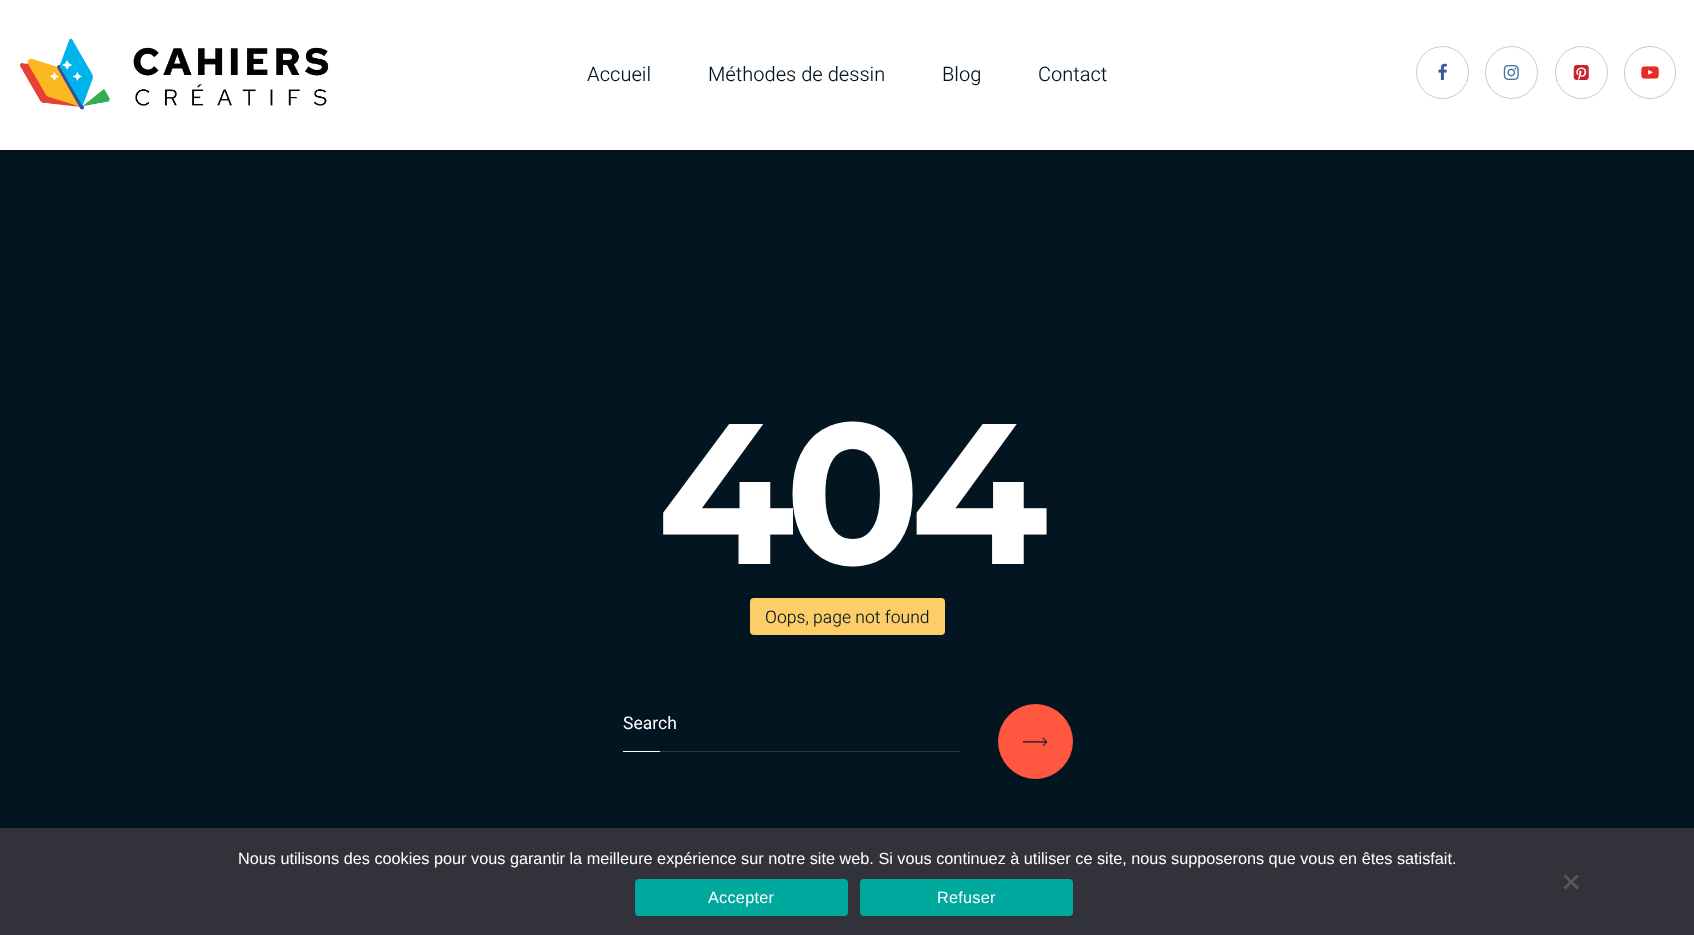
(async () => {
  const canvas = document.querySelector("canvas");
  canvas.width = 1694;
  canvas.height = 935;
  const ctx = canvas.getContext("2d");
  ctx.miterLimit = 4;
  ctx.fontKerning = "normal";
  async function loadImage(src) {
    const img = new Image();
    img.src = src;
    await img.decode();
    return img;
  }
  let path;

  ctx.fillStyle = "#ffffff";
  ctx.fillRect(0, 0, 1694, 935);
  ctx.drawImage(await loadImage("img/1.png"), 20, 38, 309, 72);
  ctx.beginPath();
  ctx.arc(1442.5, 72.5, 26, 0, Math.PI * 2);
  ctx.strokeStyle = "#c5cacd";
  ctx.stroke();
  ctx.drawImage(await loadImage("img/2.png"), 1438, 63, 9, 17);
  ctx.beginPath();
  ctx.arc(1511.5, 72.5, 26, 0, Math.PI * 2);
  ctx.stroke();
  ctx.drawImage(await loadImage("img/3.png"), 1503, 65, 16, 15);
  ctx.beginPath();
  ctx.arc(1581.5, 72.5, 26, 0, Math.PI * 2);
  ctx.stroke();
  ctx.drawImage(await loadImage("img/4.png"), 1573, 65, 16, 15);
  ctx.beginPath();
  ctx.roundRect(1624.5, 46.5, 51, 52, 25.5);
  ctx.stroke();
  ctx.drawImage(await loadImage("img/5.png"), 1641, 66, 18, 13);
  ctx.fillStyle = "#031521";
  ctx.fillRect(0, 150, 1694, 678);
  ctx.fillStyle = "#fdcd67";
  ctx.beginPath();
  ctx.roundRect(750, 598, 195, 37, 4);
  ctx.fill();
  ctx.fillStyle = "#293842";
  ctx.fillRect(660, 751, 300, 1);
  ctx.fillStyle = "#ffffff";
  ctx.fillRect(623, 751, 37, 1);
  ctx.fillStyle = "#ff5740";
  ctx.beginPath();
  ctx.arc(1035.5, 741.5, 37, 0, Math.PI * 2);
  ctx.fill();
  ctx.strokeStyle = "#ff5740";
  ctx.stroke();
  ctx.drawImage(await loadImage("img/6.png"), 1022, 737, 26, 9);
  ctx.fillStyle = "#32323a";
  ctx.fillRect(0, 828, 1694, 107);
  ctx.fillStyle = "#59595d";
  path = new Path2D("M1577 874.5L1579 876L1565.5 889.5L1563.5 887.5Z");
  ctx.fill(path);
  path = new Path2D("M1563.5 876L1565.5 874.5L1579 887.5L1577 889.5Z");
  ctx.fill(path);
  ctx.fillStyle = "#00a99d";
  ctx.beginPath();
  ctx.roundRect(635, 879, 213, 37, 4);
  ctx.fill();
  ctx.beginPath();
  ctx.roundRect(860, 879, 213, 37, 4);
  ctx.fill();
  ctx.font = "300 20px Heebo";
  ctx.fillStyle = "#031521";
  for (const [text, x, y] of [
    ["Accueil", 587, 81],
    ["Méthodes de dessin", 708, 81],
    ["Blog", 942, 81],
    ["Contact", 1038, 81],
  ]) {
    ctx.fillText(text, x, y);
  }
  ctx.letterSpacing = "-10px";
  ctx.font = "bold 200px Montserrat";
  ctx.fillStyle = "#ffffff";
  ctx.fillText("404", 657, 564);
  ctx.letterSpacing = "0px";
  ctx.font = "300 17.5px Heebo";
  ctx.fillStyle = "#031521";
  ctx.fillText("Oops, page not found", 765, 623);
  ctx.font = "17.5px Heebo";
  ctx.fillStyle = "#ffffff";
  ctx.fillText("Search", 623, 729);
  ctx.font = "16.25px Liberation Sans";
  ctx.fillText("Nous utilisons des cookies pour vous garantir la meilleure expérience sur notre site web. Si vous continuez à utiliser ce site, nous supposerons que vous en êtes satisfait.", 238, 864);
  ctx.letterSpacing = "0.25px";
  ctx.fillText("Accepter", 708, 903);
  ctx.fillText("Refuser", 937, 903);
})();
